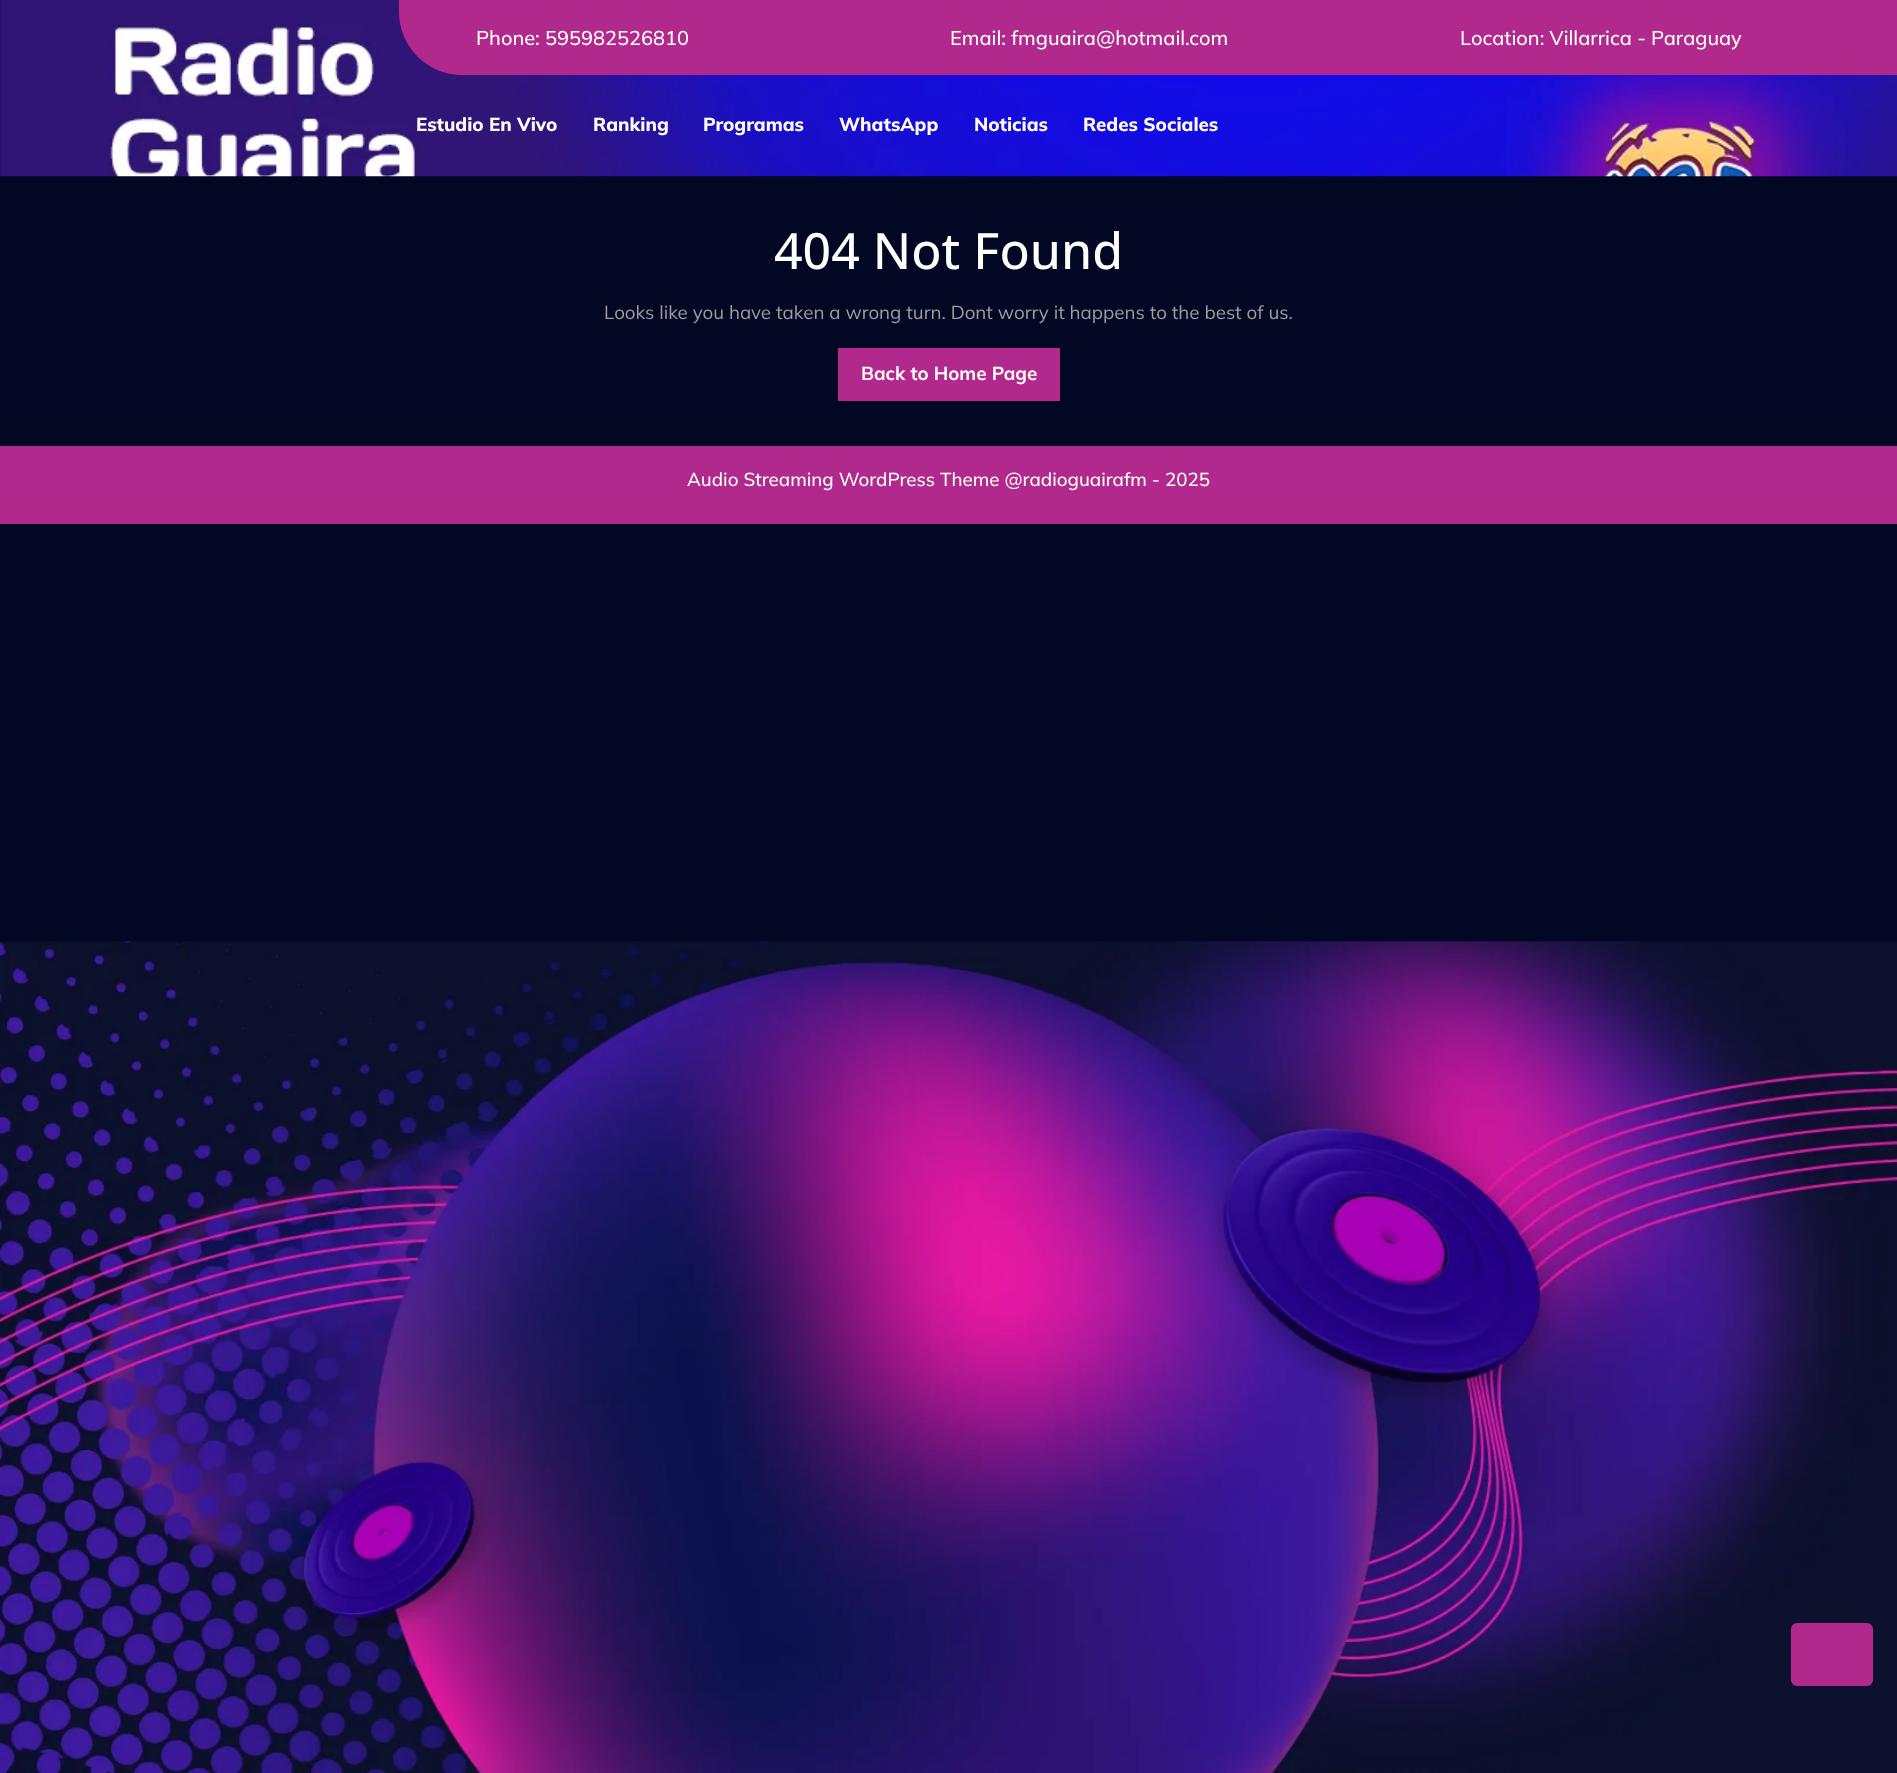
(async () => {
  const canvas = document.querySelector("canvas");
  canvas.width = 1897;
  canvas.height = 1773;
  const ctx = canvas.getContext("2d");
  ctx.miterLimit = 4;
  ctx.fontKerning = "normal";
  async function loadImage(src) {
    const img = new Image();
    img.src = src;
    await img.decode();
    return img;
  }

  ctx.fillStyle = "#020723";
  ctx.fillRect(0, 0, 1897, 1773);
  ctx.drawImage(await loadImage("img/1.png"), 0, 941, 1897, 832);
  ctx.drawImage(await loadImage("img/2.png"), 0, 0, 1897, 177);
  ctx.fillStyle = "#b2298e";
  ctx.beginPath();
  ctx.roundRect(399, 0, 1360, 75, [0, 0, 0, 63]);
  ctx.fill();
  for (const [x, y, w, h, color] of [
    [1759, 0, 138, 75, "#b2298e"],
    [838, 348, 222, 53, "#b2298e"],
    [0, 446, 1897, 78, "#b2298e"],
  ]) {
    ctx.fillStyle = color;
    ctx.fillRect(x, y, w, h);
  }
  ctx.beginPath();
  ctx.roundRect(1792.5, 1624.5, 79, 60, 4.5);
  ctx.fill();
  ctx.strokeStyle = "#b2298e";
  ctx.lineWidth = 3;
  ctx.stroke();
  ctx.font = "200 20px 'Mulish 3'";
  ctx.fillStyle = "#ffffff";
  for (const [text, x, y] of [
    ["Phone: 595982526810", 476, 45],
    ["Email: fmguaira@hotmail.com", 950, 45],
    ["Location: Villarrica - Paraguay", 1460, 45],
  ]) {
    ctx.fillText(text, x, y);
  }
  ctx.font = "200 18.75px 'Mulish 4'";
  for (const [text, x, y] of [
    ["Estudio En Vivo", 416, 131],
    ["Ranking", 593, 131],
    ["Programas", 703, 131],
    ["WhatsApp", 839, 131],
    ["Noticias", 974, 131],
    ["Redes Sociales", 1083, 131],
  ]) {
    ctx.fillText(text, x, y);
  }
  ctx.font = "500 50px Open Sans";
  ctx.fillText("404 Not Found", 774, 269);
  ctx.font = "200 18.75px Mulish";
  ctx.fillStyle = "#9e9e9e";
  ctx.fillText("Looks like you have taken a wrong turn. Dont worry it happens to the best of us.", 604, 319);
  ctx.font = "200 18.75px 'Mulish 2'";
  ctx.fillStyle = "#ffffff";
  ctx.fillText("Back to Home Page", 861, 380);
  ctx.font = "200 18.75px 'Mulish 3'";
  ctx.fillText("Audio Streaming WordPress Theme @radioguairafm - 2025", 687, 486);
})();
